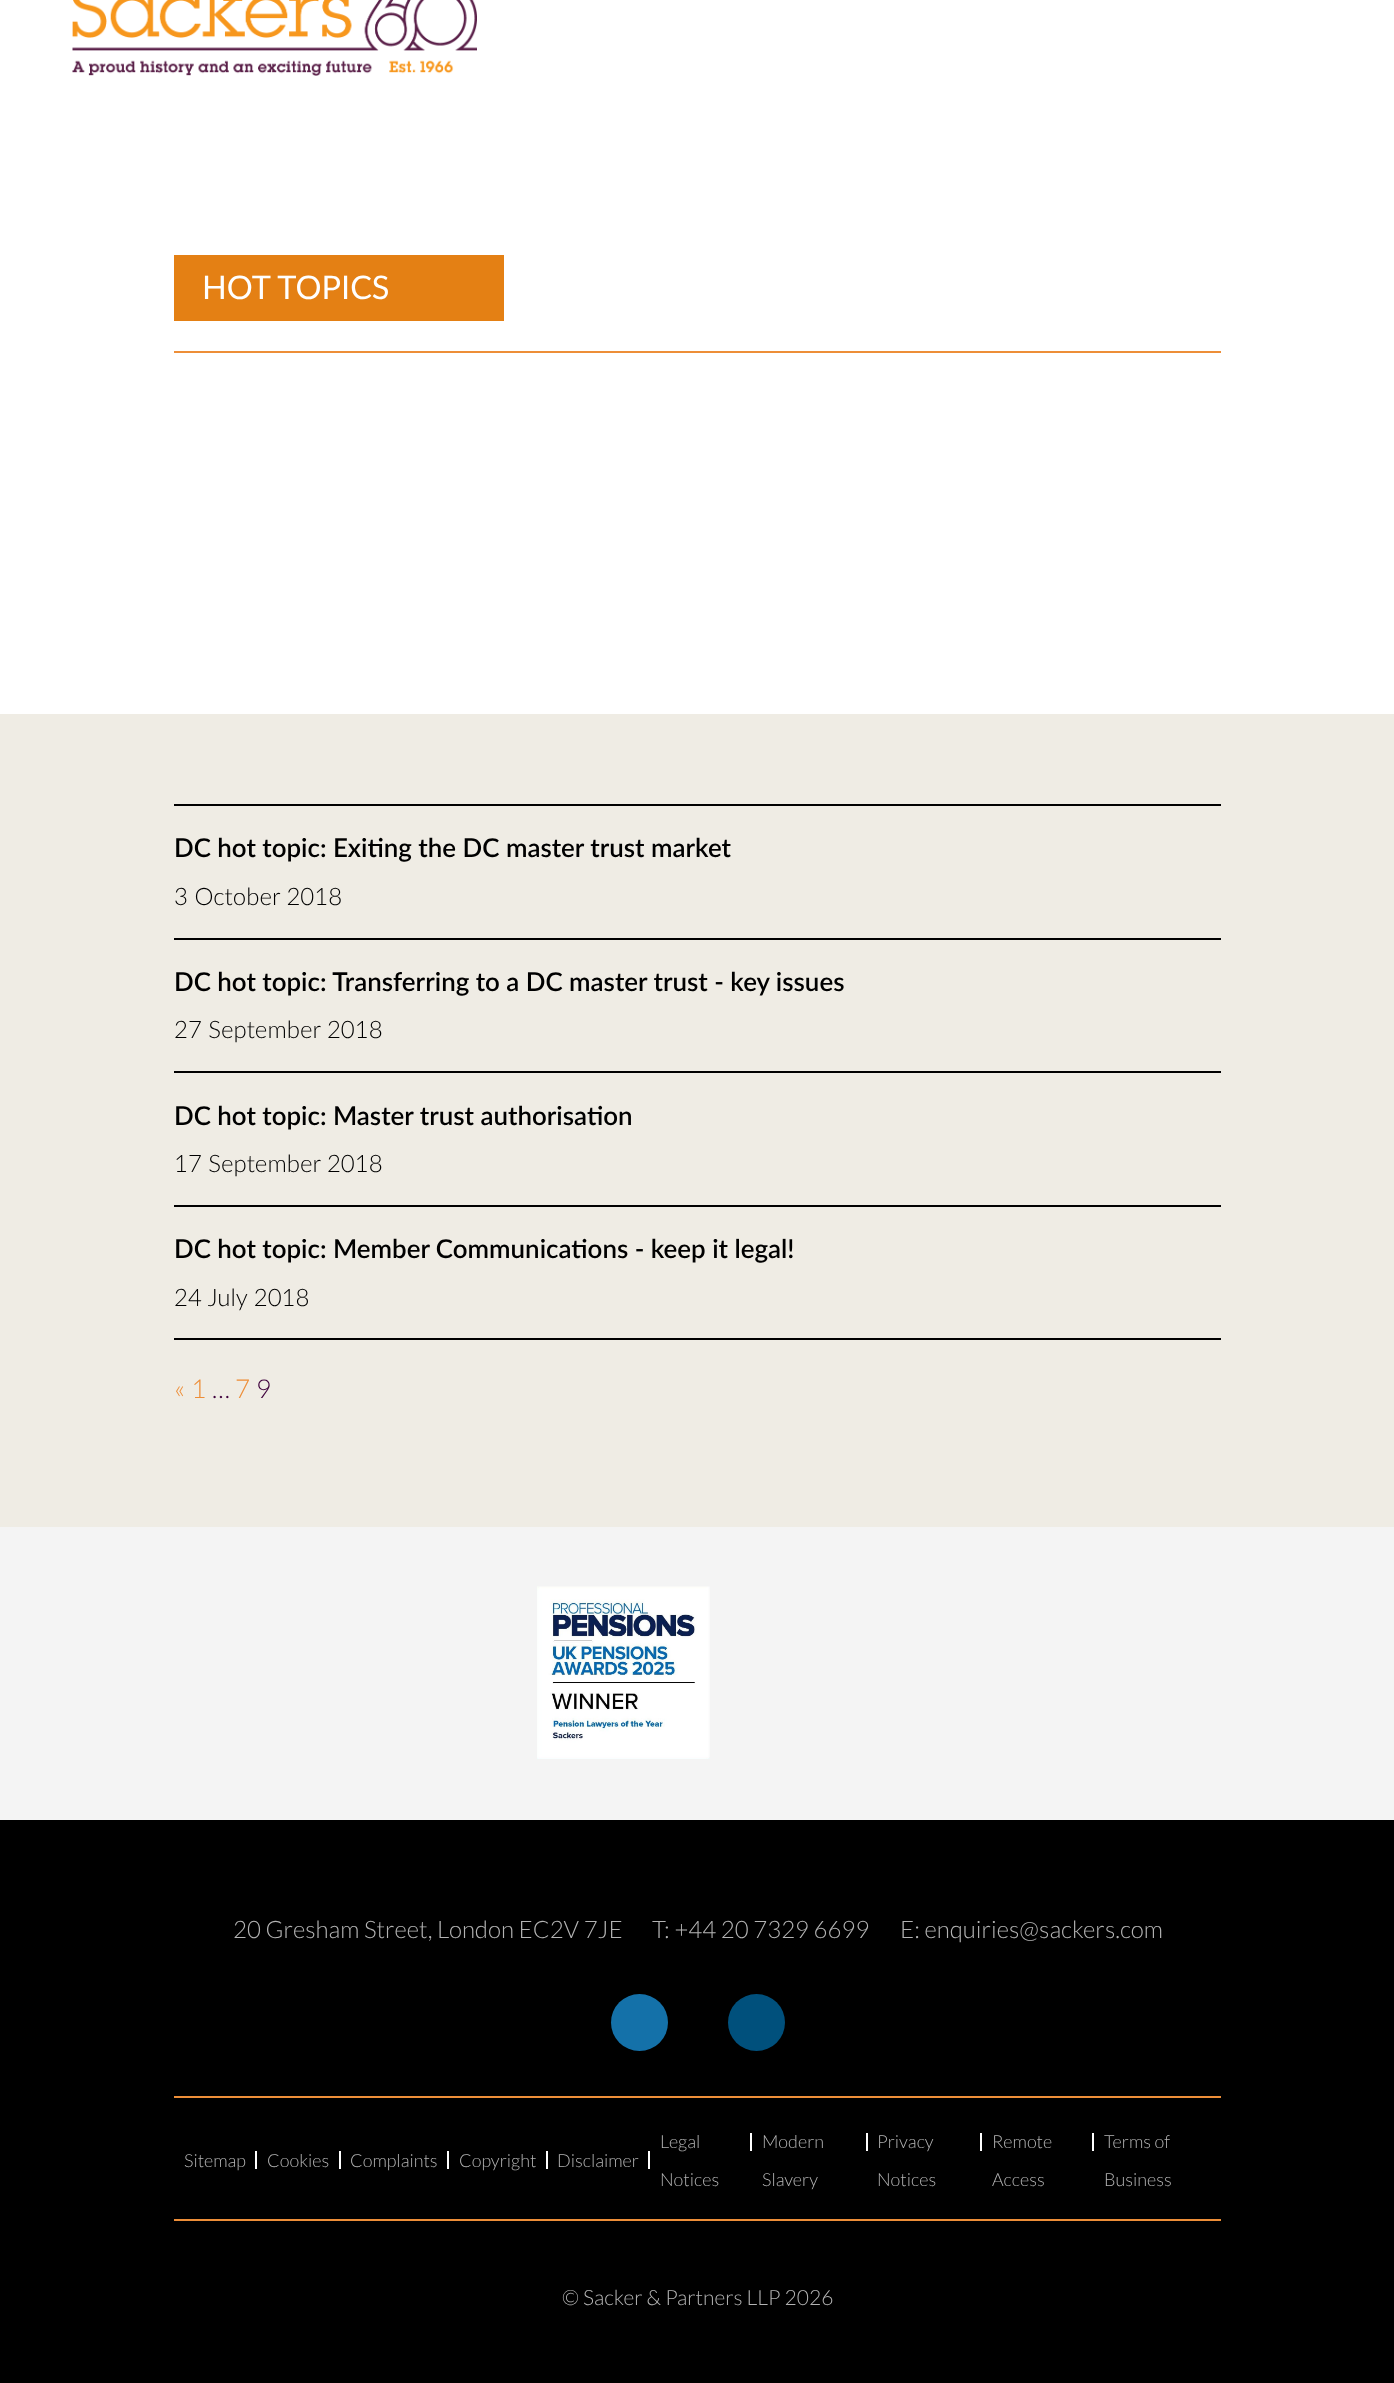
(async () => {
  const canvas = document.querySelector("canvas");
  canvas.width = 1394;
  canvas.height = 2383;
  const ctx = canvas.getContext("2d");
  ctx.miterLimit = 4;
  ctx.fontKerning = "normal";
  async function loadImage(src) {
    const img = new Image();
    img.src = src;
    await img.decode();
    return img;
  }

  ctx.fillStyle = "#ffffff";
  ctx.fillRect(0, 0, 1394, 2383);
  ctx.drawImage(await loadImage("img/1.png"), 72, 0, 405, 76);
  for (const [x, y, w, h, color] of [
    [174, 255, 330, 66, "#e48014"],
    [174, 351, 1047, 2, "#ed8e38"],
    [0, 714, 1394, 813, "#efece4"],
    [174, 804, 1047, 2, "#000000"],
    [174, 938, 1047, 2, "#000000"],
    [174, 1071, 1047, 2, "#000000"],
    [174, 1205, 1047, 2, "#000000"],
    [174, 1338, 1047, 2, "#000000"],
    [0, 1527, 1394, 293, "#f4f4f4"],
  ]) {
    ctx.fillStyle = color;
    ctx.fillRect(x, y, w, h);
  }
  ctx.drawImage(await loadImage("img/2.png"), 537, 1586, 173, 173);
  ctx.fillStyle = "#000000";
  ctx.fillRect(0, 1820, 1394, 563);
  ctx.fillStyle = "#1471a9";
  ctx.beginPath();
  ctx.arc(639.5, 2022.5, 28.5, 0, Math.PI * 2);
  ctx.fill();
  ctx.fillStyle = "#00507c";
  ctx.beginPath();
  ctx.arc(756.5, 2022.5, 28.5, 0, Math.PI * 2);
  ctx.fill();
  for (const [x, y, w, h, color] of [
    [174, 2096, 1047, 2, "#ed8e38"],
    [174, 2219, 1047, 2, "#ed8e38"],
    [255, 2151, 2, 18, "#ffffff"],
    [339, 2151, 2, 18, "#ffffff"],
    [447, 2151, 2, 18, "#ffffff"],
    [546, 2151, 2, 18, "#ffffff"],
    [648, 2151, 2, 18, "#ffffff"],
    [750, 2133, 2, 18, "#ffffff"],
    [866, 2133, 2, 18, "#ffffff"],
    [980, 2133, 2, 18, "#ffffff"],
    [1092, 2133, 2, 18, "#ffffff"],
  ]) {
    ctx.fillStyle = color;
    ctx.fillRect(x, y, w, h);
  }
  ctx.font = "32.5px Lato";
  ctx.fillText("HOT TOPICS", 202, 299);
  ctx.font = "600 25.9px Lato";
  ctx.fillStyle = "#000000";
  ctx.fillText("DC hot topic: Exiting the DC master trust market", 174, 857);
  ctx.font = "300 24px Lato";
  ctx.fillText("3 October 2018", 174, 905);
  ctx.font = "600 25.9px Lato";
  ctx.fillText("DC hot topic: Transferring to a DC master trust - key issues", 174, 991);
  ctx.font = "300 24px Lato";
  ctx.fillText("27 September 2018", 174, 1038);
  ctx.font = "600 25.9px Lato";
  ctx.fillText("DC hot topic: Master trust authorisation", 174, 1125);
  ctx.font = "300 24px Lato";
  ctx.fillText("17 September 2018", 174, 1172);
  ctx.font = "600 25.9px Lato";
  ctx.fillText("DC hot topic: Member Communications - keep it legal!", 174, 1258);
  ctx.font = "300 24px Lato";
  ctx.fillText("24 July 2018", 174, 1306);
  ctx.font = "300 26px 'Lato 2'";
  ctx.fillStyle = "#ed8e38";
  ctx.fillText("«", 174, 1398);
  ctx.fillText("1", 191, 1398);
  ctx.fillStyle = "#3e003c";
  ctx.fillText("…", 212, 1398);
  ctx.fillStyle = "#ed8e38";
  ctx.fillText("7", 235, 1398);
  ctx.fillStyle = "#3e003c";
  ctx.fillText("9", 256, 1398);
  ctx.font = "300 24px 'Lato 2'";
  ctx.fillStyle = "#b3b3b3";
  for (const [text, x, y] of [
    ["20 Gresham Street, London EC2V 7JE", 233, 1938],
    ["T: +44 20 7329 6699", 652, 1938],
    ["E: enquiries@sackers.com", 900, 1938],
  ]) {
    ctx.fillText(text, x, y);
  }
  ctx.font = "300 18px 'Lato 2'";
  for (const [text, x, y] of [
    ["Sitemap", 184, 2167],
    ["Cookies", 267, 2167],
    ["Complaints", 350, 2167],
    ["Copyright", 459, 2167],
    ["Disclaimer", 557, 2167],
    ["Legal", 660, 2148],
    ["Notices", 660, 2186],
    ["Modern", 762, 2148],
    ["Slavery", 762, 2186],
    ["Privacy", 877, 2148],
    ["Notices", 877, 2186],
    ["Remote", 992, 2148],
    ["Access", 992, 2186],
    ["Terms of", 1104, 2148],
    ["Business", 1104, 2186],
  ]) {
    ctx.fillText(text, x, y);
  }
  ctx.font = "300 21px 'Lato 2'";
  ctx.fillText("© Sacker & Partners LLP 2026", 562, 2305);
})();
